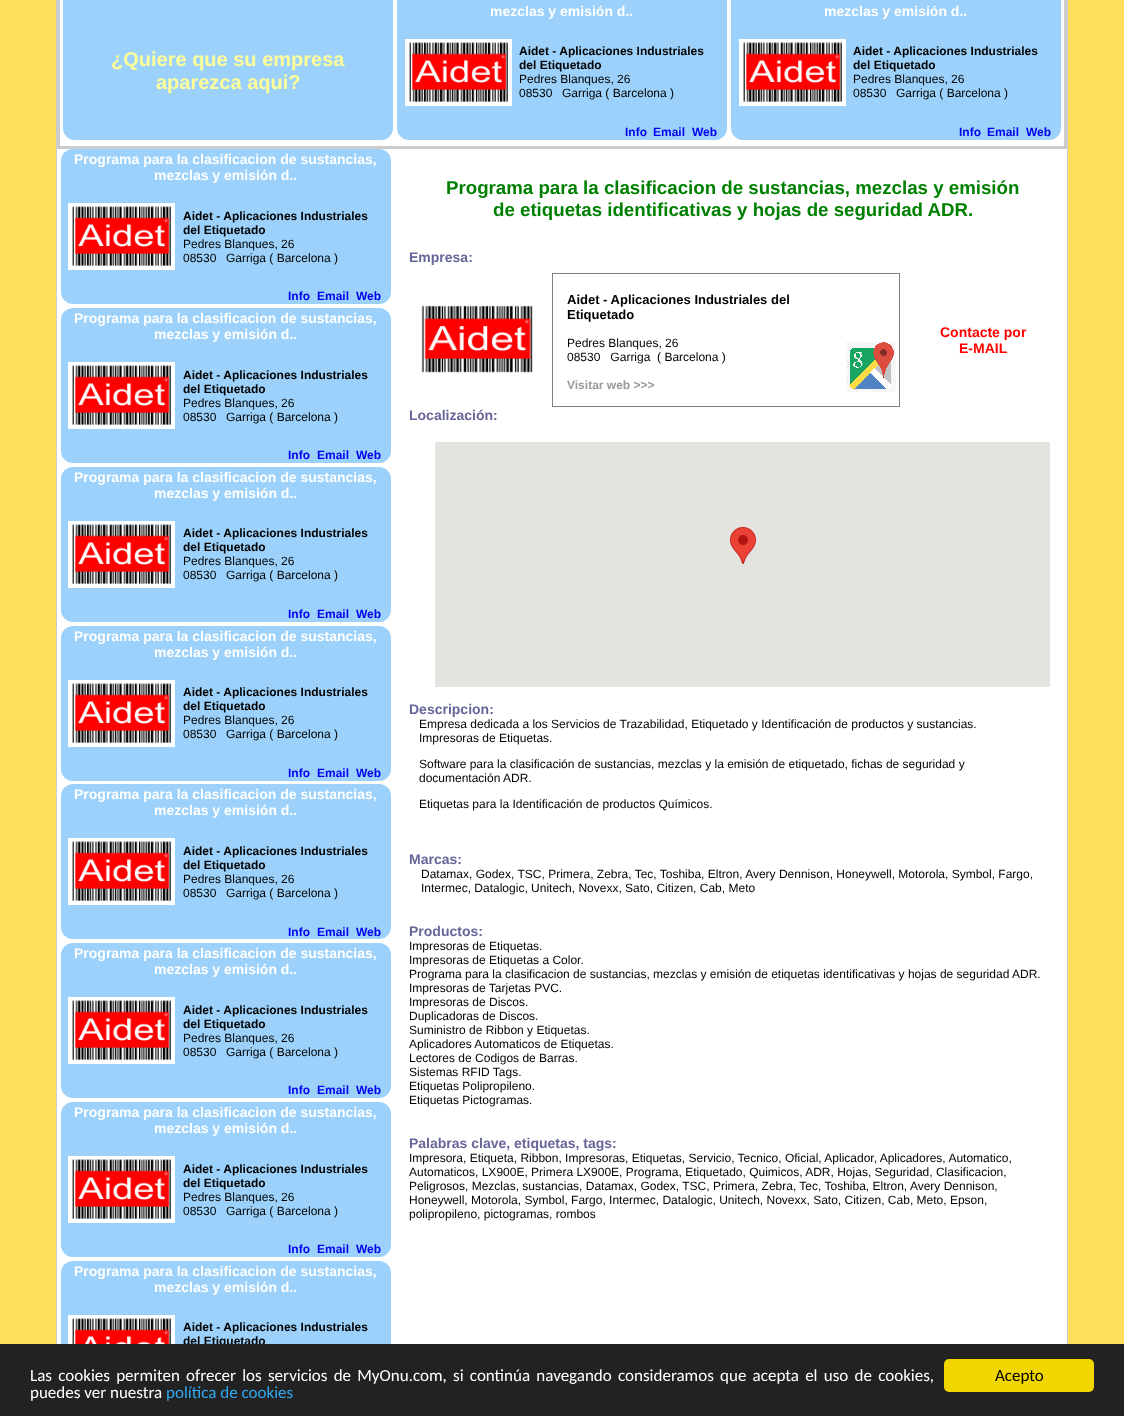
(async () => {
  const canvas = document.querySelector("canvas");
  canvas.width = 1124;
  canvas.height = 1416;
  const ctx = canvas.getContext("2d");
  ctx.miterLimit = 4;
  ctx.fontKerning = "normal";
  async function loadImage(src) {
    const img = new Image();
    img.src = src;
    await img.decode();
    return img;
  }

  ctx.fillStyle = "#ffde59";
  ctx.fillRect(0, 0, 1124, 1416);
  for (const [x, y, w, h, color] of [
    [1067, 0, 1, 1344, "#cccccc"],
    [56, 0, 1, 1344, "#cccccc"],
    [57, 0, 1010, 1344, "#ffffff"],
  ]) {
    ctx.fillStyle = color;
    ctx.fillRect(x, y, w, h);
  }
  ctx.strokeStyle = "#cccccc";
  ctx.lineWidth = 3;
  ctx.strokeRect(58.5, -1.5, 1007, 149);
  ctx.fillStyle = "#9bd1fa";
  ctx.beginPath();
  ctx.roundRect(63, -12, 330, 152, 12);
  ctx.fill();
  ctx.beginPath();
  ctx.roundRect(397, -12, 330, 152, 12);
  ctx.fill();
  ctx.drawImage(await loadImage("img/1.png"), 405, 39, 107, 67);
  ctx.beginPath();
  ctx.roundRect(731, -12, 330, 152, 12);
  ctx.fill();
  ctx.drawImage(await loadImage("img/1.png"), 739, 39, 107, 67);
  ctx.beginPath();
  ctx.roundRect(61, 149, 330, 155, 12);
  ctx.fill();
  ctx.drawImage(await loadImage("img/1.png"), 68, 203, 107, 67);
  ctx.beginPath();
  ctx.roundRect(61, 308, 330, 155, 12);
  ctx.fill();
  ctx.drawImage(await loadImage("img/2.png"), 68, 362, 107, 67);
  ctx.beginPath();
  ctx.roundRect(61, 467, 330, 155, 12);
  ctx.fill();
  ctx.drawImage(await loadImage("img/1.png"), 68, 521, 107, 67);
  ctx.beginPath();
  ctx.roundRect(61, 626, 330, 155, 12);
  ctx.fill();
  ctx.drawImage(await loadImage("img/1.png"), 68, 680, 107, 67);
  ctx.beginPath();
  ctx.roundRect(61, 784, 330, 155, 12);
  ctx.fill();
  ctx.drawImage(await loadImage("img/1.png"), 68, 838, 107, 67);
  ctx.beginPath();
  ctx.roundRect(61, 943, 330, 155, 12);
  ctx.fill();
  ctx.drawImage(await loadImage("img/1.png"), 68, 997, 107, 67);
  ctx.beginPath();
  ctx.roundRect(61, 1102, 330, 155, 12);
  ctx.fill();
  ctx.drawImage(await loadImage("img/1.png"), 68, 1156, 107, 67);
  ctx.beginPath();
  ctx.roundRect(61, 1261, 330, 155, 12);
  ctx.fill();
  ctx.drawImage(await loadImage("img/3.png"), 68, 1315, 107, 29);
  ctx.drawImage(await loadImage("img/4.png"), 421, 305, 112, 68);
  for (const [x, y, w, h, color] of [
    [552, 273, 348, 1, "#808080"],
    [899, 273, 1, 134, "#808080"],
    [552, 406, 348, 1, "#808080"],
    [552, 273, 1, 134, "#808080"],
  ]) {
    ctx.fillStyle = color;
    ctx.fillRect(x, y, w, h);
  }
  ctx.drawImage(await loadImage("img/5.png"), 846, 342, 50, 50);
  ctx.fillStyle = "#e5e3df";
  ctx.fillRect(435, 442, 615, 245);
  ctx.drawImage(await loadImage("img/6.png"), 730, 527, 26, 37);
  ctx.font = "bold 20px Liberation Sans";
  ctx.fillStyle = "#ffff99";
  ctx.fillText("¿Quiere que su empresa", 111, 66);
  ctx.fillText("aparezca aqui?", 156, 89);
  ctx.font = "bold 14px Liberation Sans";
  ctx.fillStyle = "#ffffff";
  ctx.fillText("mezclas y emisión d..", 490, 16);
  ctx.font = "bold 12px Liberation Sans";
  ctx.fillStyle = "#000000";
  ctx.fillText("Aidet - Aplicaciones Industriales", 519, 55);
  ctx.fillText("del Etiquetado", 519, 69);
  ctx.font = "12px Liberation Sans";
  for (const [text, x, y] of [
    ["Pedres Blanques, 26", 519, 83],
    ["08530", 519, 97],
    ["Garriga ( Barcelona )", 562, 97],
  ]) {
    ctx.fillText(text, x, y);
  }
  ctx.font = "bold 12px Liberation Sans";
  ctx.fillStyle = "#0000ee";
  for (const [text, x, y] of [
    ["Info", 625, 136],
    ["Email", 653, 136],
    ["Web", 692, 136],
  ]) {
    ctx.fillText(text, x, y);
  }
  ctx.font = "bold 14px Liberation Sans";
  ctx.fillStyle = "#ffffff";
  ctx.fillText("mezclas y emisión d..", 824, 16);
  ctx.font = "bold 12px Liberation Sans";
  ctx.fillStyle = "#000000";
  ctx.fillText("Aidet - Aplicaciones Industriales", 853, 55);
  ctx.fillText("del Etiquetado", 853, 69);
  ctx.font = "12px Liberation Sans";
  for (const [text, x, y] of [
    ["Pedres Blanques, 26", 853, 83],
    ["08530", 853, 97],
    ["Garriga ( Barcelona )", 896, 97],
  ]) {
    ctx.fillText(text, x, y);
  }
  ctx.font = "bold 12px Liberation Sans";
  ctx.fillStyle = "#0000ee";
  for (const [text, x, y] of [
    ["Info", 959, 136],
    ["Email", 987, 136],
    ["Web", 1026, 136],
  ]) {
    ctx.fillText(text, x, y);
  }
  ctx.font = "bold 14px Liberation Sans";
  ctx.fillStyle = "#ffffff";
  ctx.fillText("Programa para la clasificacion de sustancias,", 74, 164);
  ctx.fillText("mezclas y emisión d..", 154, 180);
  ctx.font = "bold 12px Liberation Sans";
  ctx.fillStyle = "#000000";
  ctx.fillText("Aidet - Aplicaciones Industriales", 183, 220);
  ctx.fillText("del Etiquetado", 183, 234);
  ctx.font = "12px Liberation Sans";
  for (const [text, x, y] of [
    ["Pedres Blanques, 26", 183, 248],
    ["08530", 183, 262],
    ["Garriga ( Barcelona )", 226, 262],
  ]) {
    ctx.fillText(text, x, y);
  }
  ctx.font = "bold 12px Liberation Sans";
  ctx.fillStyle = "#0000ee";
  for (const [text, x, y] of [
    ["Info", 288, 300],
    ["Email", 317, 300],
    ["Web", 356, 300],
  ]) {
    ctx.fillText(text, x, y);
  }
  ctx.font = "bold 14px Liberation Sans";
  ctx.fillStyle = "#ffffff";
  ctx.fillText("Programa para la clasificacion de sustancias,", 74, 323);
  ctx.fillText("mezclas y emisión d..", 154, 339);
  ctx.font = "bold 12px Liberation Sans";
  ctx.fillStyle = "#000000";
  ctx.fillText("Aidet - Aplicaciones Industriales", 183, 379);
  ctx.fillText("del Etiquetado", 183, 393);
  ctx.font = "12px Liberation Sans";
  for (const [text, x, y] of [
    ["Pedres Blanques, 26", 183, 407],
    ["08530", 183, 421],
    ["Garriga ( Barcelona )", 226, 421],
  ]) {
    ctx.fillText(text, x, y);
  }
  ctx.font = "bold 12px Liberation Sans";
  ctx.fillStyle = "#0000ee";
  for (const [text, x, y] of [
    ["Info", 288, 459],
    ["Email", 317, 459],
    ["Web", 356, 459],
  ]) {
    ctx.fillText(text, x, y);
  }
  ctx.font = "bold 14px Liberation Sans";
  ctx.fillStyle = "#ffffff";
  ctx.fillText("Programa para la clasificacion de sustancias,", 74, 482);
  ctx.fillText("mezclas y emisión d..", 154, 498);
  ctx.font = "bold 12px Liberation Sans";
  ctx.fillStyle = "#000000";
  ctx.fillText("Aidet - Aplicaciones Industriales", 183, 537);
  ctx.fillText("del Etiquetado", 183, 551);
  ctx.font = "12px Liberation Sans";
  for (const [text, x, y] of [
    ["Pedres Blanques, 26", 183, 565],
    ["08530", 183, 579],
    ["Garriga ( Barcelona )", 226, 579],
  ]) {
    ctx.fillText(text, x, y);
  }
  ctx.font = "bold 12px Liberation Sans";
  ctx.fillStyle = "#0000ee";
  for (const [text, x, y] of [
    ["Info", 288, 618],
    ["Email", 317, 618],
    ["Web", 356, 618],
  ]) {
    ctx.fillText(text, x, y);
  }
  ctx.font = "bold 14px Liberation Sans";
  ctx.fillStyle = "#ffffff";
  ctx.fillText("Programa para la clasificacion de sustancias,", 74, 641);
  ctx.fillText("mezclas y emisión d..", 154, 657);
  ctx.font = "bold 12px Liberation Sans";
  ctx.fillStyle = "#000000";
  ctx.fillText("Aidet - Aplicaciones Industriales", 183, 696);
  ctx.fillText("del Etiquetado", 183, 710);
  ctx.font = "12px Liberation Sans";
  for (const [text, x, y] of [
    ["Pedres Blanques, 26", 183, 724],
    ["08530", 183, 738],
    ["Garriga ( Barcelona )", 226, 738],
  ]) {
    ctx.fillText(text, x, y);
  }
  ctx.font = "bold 12px Liberation Sans";
  ctx.fillStyle = "#0000ee";
  for (const [text, x, y] of [
    ["Info", 288, 777],
    ["Email", 317, 777],
    ["Web", 356, 777],
  ]) {
    ctx.fillText(text, x, y);
  }
  ctx.font = "bold 14px Liberation Sans";
  ctx.fillStyle = "#ffffff";
  ctx.fillText("Programa para la clasificacion de sustancias,", 74, 799);
  ctx.fillText("mezclas y emisión d..", 154, 815);
  ctx.font = "bold 12px Liberation Sans";
  ctx.fillStyle = "#000000";
  ctx.fillText("Aidet - Aplicaciones Industriales", 183, 855);
  ctx.fillText("del Etiquetado", 183, 869);
  ctx.font = "12px Liberation Sans";
  for (const [text, x, y] of [
    ["Pedres Blanques, 26", 183, 883],
    ["08530", 183, 897],
    ["Garriga ( Barcelona )", 226, 897],
  ]) {
    ctx.fillText(text, x, y);
  }
  ctx.font = "bold 12px Liberation Sans";
  ctx.fillStyle = "#0000ee";
  for (const [text, x, y] of [
    ["Info", 288, 936],
    ["Email", 317, 936],
    ["Web", 356, 936],
  ]) {
    ctx.fillText(text, x, y);
  }
  ctx.font = "bold 14px Liberation Sans";
  ctx.fillStyle = "#ffffff";
  ctx.fillText("Programa para la clasificacion de sustancias,", 74, 958);
  ctx.fillText("mezclas y emisión d..", 154, 974);
  ctx.font = "bold 12px Liberation Sans";
  ctx.fillStyle = "#000000";
  ctx.fillText("Aidet - Aplicaciones Industriales", 183, 1014);
  ctx.fillText("del Etiquetado", 183, 1028);
  ctx.font = "12px Liberation Sans";
  for (const [text, x, y] of [
    ["Pedres Blanques, 26", 183, 1042],
    ["08530", 183, 1056],
    ["Garriga ( Barcelona )", 226, 1056],
  ]) {
    ctx.fillText(text, x, y);
  }
  ctx.font = "bold 12px Liberation Sans";
  ctx.fillStyle = "#0000ee";
  for (const [text, x, y] of [
    ["Info", 288, 1094],
    ["Email", 317, 1094],
    ["Web", 356, 1094],
  ]) {
    ctx.fillText(text, x, y);
  }
  ctx.font = "bold 14px Liberation Sans";
  ctx.fillStyle = "#ffffff";
  ctx.fillText("Programa para la clasificacion de sustancias,", 74, 1117);
  ctx.fillText("mezclas y emisión d..", 154, 1133);
  ctx.font = "bold 12px Liberation Sans";
  ctx.fillStyle = "#000000";
  ctx.fillText("Aidet - Aplicaciones Industriales", 183, 1173);
  ctx.fillText("del Etiquetado", 183, 1187);
  ctx.font = "12px Liberation Sans";
  for (const [text, x, y] of [
    ["Pedres Blanques, 26", 183, 1201],
    ["08530", 183, 1215],
    ["Garriga ( Barcelona )", 226, 1215],
  ]) {
    ctx.fillText(text, x, y);
  }
  ctx.font = "bold 12px Liberation Sans";
  ctx.fillStyle = "#0000ee";
  for (const [text, x, y] of [
    ["Info", 288, 1253],
    ["Email", 317, 1253],
    ["Web", 356, 1253],
  ]) {
    ctx.fillText(text, x, y);
  }
  ctx.font = "bold 14px Liberation Sans";
  ctx.fillStyle = "#ffffff";
  ctx.fillText("Programa para la clasificacion de sustancias,", 74, 1276);
  ctx.fillText("mezclas y emisión d..", 154, 1292);
  ctx.font = "bold 12px Liberation Sans";
  ctx.fillStyle = "#000000";
  ctx.fillText("Aidet - Aplicaciones Industriales", 183, 1331);
  ctx.fillText("del Etiquetado", 183, 1345);
  ctx.font = "bold 18.7px Liberation Sans";
  ctx.fillStyle = "#008000";
  ctx.fillText("Programa para la clasificacion de sustancias, mezclas y emisión", 446, 194);
  ctx.fillText("de etiquetas identificativas y hojas de seguridad ADR.", 493, 216);
  ctx.font = "bold 14px Liberation Sans";
  ctx.fillStyle = "#666699";
  ctx.fillText("Empresa:", 409, 262);
  ctx.font = "bold 13px Liberation Sans";
  ctx.fillStyle = "#000000";
  ctx.fillText("Aidet - Aplicaciones Industriales del", 567, 304);
  ctx.fillText("Etiquetado", 567, 319);
  ctx.font = "12px Liberation Sans";
  ctx.fillText("Pedres Blanques, 26", 567, 347);
  ctx.fillText("08530   Garriga  ( Barcelona )", 567, 361);
  ctx.font = "bold 12px Liberation Sans";
  ctx.fillStyle = "#999999";
  ctx.fillText("Visitar web >>>", 567, 389);
  ctx.font = "bold 14px Liberation Sans";
  ctx.fillStyle = "#ff0000";
  ctx.fillText("Contacte por", 940, 337);
  ctx.fillText("E-MAIL", 959, 353);
  ctx.fillStyle = "#666699";
  ctx.fillText("Localización:", 409, 420);
  ctx.fillText("Descripcion:", 409, 714);
  ctx.font = "12px Liberation Sans";
  ctx.fillStyle = "#000000";
  for (const [text, x, y] of [
    ["Empresa dedicada a los Servicios de Trazabilidad, Etiquetado y Identificación de productos y sustancias.", 419, 728],
    ["Impresoras de Etiquetas.", 419, 742],
    ["Software para la clasificación de sustancias, mezclas y la emisión de etiquetado, fichas de seguridad y", 419, 768],
    ["documentación ADR.", 419, 782],
    ["Etiquetas para la Identificación de productos Químicos.", 419, 808],
  ]) {
    ctx.fillText(text, x, y);
  }
  ctx.font = "bold 14px Liberation Sans";
  ctx.fillStyle = "#666699";
  ctx.fillText("Marcas:", 409, 864);
  ctx.font = "12px Liberation Sans";
  ctx.fillStyle = "#000000";
  ctx.fillText("Datamax, Godex, TSC, Primera, Zebra, Tec, Toshiba, Eltron, Avery Dennison, Honeywell, Motorola, Symbol, Fargo,", 421, 878);
  ctx.fillText("Intermec, Datalogic, Unitech, Novexx, Sato, Citizen, Cab, Meto", 421, 892);
  ctx.font = "bold 14px Liberation Sans";
  ctx.fillStyle = "#666699";
  ctx.fillText("Productos:", 409, 936);
  ctx.font = "12px Liberation Sans";
  ctx.fillStyle = "#000000";
  for (const [text, x, y] of [
    ["Impresoras de Etiquetas.", 409, 950],
    ["Impresoras de Etiquetas a Color.", 409, 964],
    ["Programa para la clasificacion de sustancias, mezclas y emisión de etiquetas identificativas y hojas de seguridad ADR.", 409, 978],
    ["Impresoras de Tarjetas PVC.", 409, 992],
    ["Impresoras de Discos.", 409, 1006],
    ["Duplicadoras de Discos.", 409, 1020],
    ["Suministro de Ribbon y Etiquetas.", 409, 1034],
    ["Aplicadores Automaticos de Etiquetas.", 409, 1048],
    ["Lectores de Codigos de Barras.", 409, 1062],
    ["Sistemas RFID Tags.", 409, 1076],
    ["Etiquetas Polipropileno.", 409, 1090],
    ["Etiquetas Pictogramas.", 409, 1104],
  ]) {
    ctx.fillText(text, x, y);
  }
  ctx.font = "bold 14px Liberation Sans";
  ctx.fillStyle = "#666699";
  ctx.fillText("Palabras clave, etiquetas, tags:", 409, 1148);
  ctx.font = "12px Liberation Sans";
  ctx.fillStyle = "#000000";
  for (const [text, x, y] of [
    ["Impresora, Etiqueta, Ribbon, Impresoras, Etiquetas, Servicio, Tecnico, Oficial, Aplicador, Aplicadores, Automatico,", 409, 1162],
    ["Automaticos, LX900E, Primera LX900E, Programa, Etiquetado, Quimicos, ADR, Hojas, Seguridad, Clasificacion,", 409, 1176],
    ["Peligrosos, Mezclas, sustancias, Datamax, Godex, TSC, Primera, Zebra, Tec, Toshiba, Eltron, Avery Dennison,", 409, 1190],
    ["Honeywell, Motorola, Symbol, Fargo, Intermec, Datalogic, Unitech, Novexx, Sato, Citizen, Cab, Meto, Epson,", 409, 1204],
    ["polipropileno, pictogramas, rombos", 409, 1218],
  ]) {
    ctx.fillText(text, x, y);
  }
  ctx.fillStyle = "#222222";
  ctx.fillRect(0, 1344, 1124, 72);
  ctx.wordSpacing = "2.4px";
  ctx.font = "17px Carlito";
  ctx.fillStyle = "#ffffff";
  ctx.fillText("Las cookies permiten ofrecer los servicios de MyOnu.com, si continúa navegando consideramos que acepta el uso de cookies,", 30, 1381);
  ctx.wordSpacing = "0px";
  ctx.fillText("puedes ver nuestra", 30, 1398);
  ctx.fillStyle = "#31a8f0";
  ctx.fillText("política de cookies", 166, 1398);
  ctx.fillStyle = "#f1d600";
  ctx.beginPath();
  ctx.roundRect(944, 1359, 150, 33, 5);
  ctx.fill();
  ctx.fillStyle = "#000000";
  ctx.fillText("Acepto", 995, 1381);
})();
